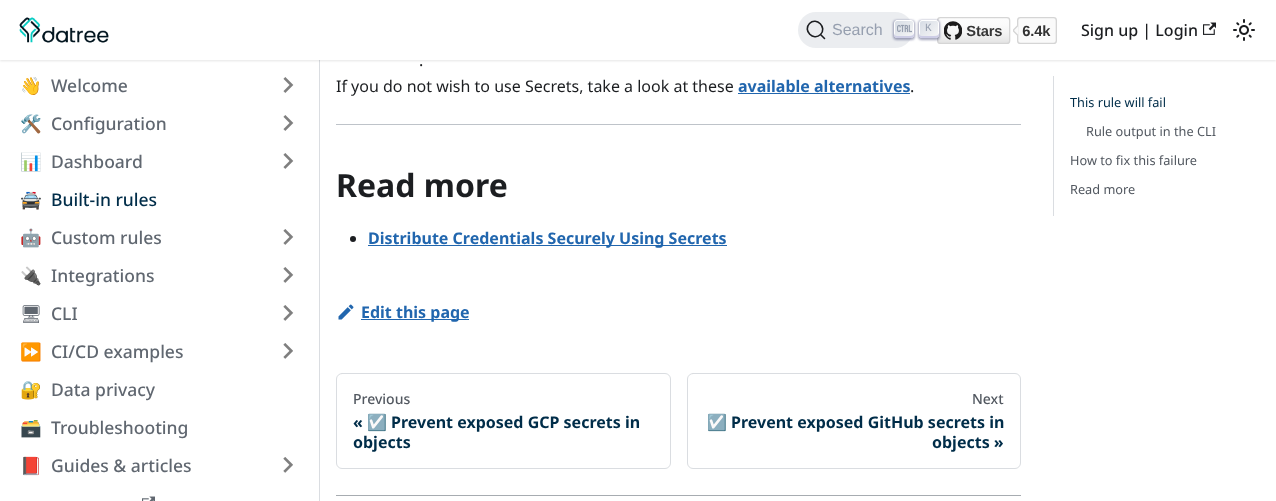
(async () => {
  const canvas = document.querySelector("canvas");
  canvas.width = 1276;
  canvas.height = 501;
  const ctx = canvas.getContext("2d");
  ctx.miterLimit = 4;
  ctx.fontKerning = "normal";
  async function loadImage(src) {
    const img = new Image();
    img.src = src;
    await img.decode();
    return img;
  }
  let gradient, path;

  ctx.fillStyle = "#ffffff";
  ctx.fillRect(0, 0, 1276, 501);
  ctx.fillStyle = "#dadde1";
  ctx.fillRect(319, 60, 1, 441);
  ctx.fillStyle = "rgba(0, 0, 0, 0.1)";
  ctx.filter = "blur(1px)";
  ctx.beginPath();
  ctx.rect(0, 1, 1276, 60);
  ctx.fill();
  ctx.filter = "none";
  ctx.fillStyle = "#ffffff";
  ctx.fillRect(0, 0, 1276, 60);
  ctx.drawImage(await loadImage("img/1.png"), 19, 17, 90, 26);
  ctx.fillStyle = "#ebedf0";
  ctx.beginPath();
  ctx.roundRect(798, 12, 115, 36, 18);
  ctx.fill();
  path = new Path2D("M820.5 34.5L824.5 38.5L820.5 34.5C813.5 41.5 802.5 30.5 809.5 23.5C816.5 16.5 827.5 27.5 820.5 34.5Z");
  ctx.strokeStyle = "#1c1e21";
  ctx.lineWidth = 1.6;
  ctx.lineCap = "round";
  ctx.lineJoin = "round";
  ctx.stroke(path);
  ctx.fillStyle = "rgba(30, 35, 90, 0.4)";
  ctx.filter = "blur(1px)";
  ctx.beginPath();
  ctx.roundRect(893, 20, 22, 20, 4);
  ctx.fill();
  ctx.filter = "none";
  gradient = ctx.createLinearGradient(895, 19, 914, 39);
  gradient.addColorStop(0, "#d5dbe4");
  gradient.addColorStop(1, "#f8f8f8");
  ctx.fillStyle = gradient;
  ctx.beginPath();
  ctx.roundRect(894.5, 20.5, 19, 17, 2.5);
  ctx.fill();
  ctx.strokeStyle = "#ffffff";
  ctx.lineWidth = 1;
  ctx.lineJoin = "miter";
  ctx.stroke();
  ctx.fillStyle = "#cdcde6";
  path = new Path2D("M914 32.5C914 35 912.5 36 909 36H897C895 36 894 34.5 894 32.5V35C894 36.5 895.5 38 897 38H911C912.5 38 914 36.5 914 35Z");
  ctx.fill(path);
  ctx.drawImage(await loadImage("img/2.png"), 897, 24, 15, 9);
  ctx.drawImage(await loadImage("img/3.png"), 937, 17, 120, 27);
  ctx.fillStyle = "rgba(30, 35, 90, 0.4)";
  ctx.filter = "blur(1px)";
  ctx.beginPath();
  ctx.roundRect(918, 20, 22, 20, 4);
  ctx.fill();
  ctx.filter = "none";
  gradient = ctx.createLinearGradient(920, 19, 939, 39);
  gradient.addColorStop(0, "#d5dbe4");
  gradient.addColorStop(1, "#f8f8f8");
  ctx.fillStyle = gradient;
  ctx.beginPath();
  ctx.roundRect(919.5, 20.5, 19, 17, 2.5);
  ctx.fill();
  ctx.stroke();
  ctx.fillStyle = "#cdcde6";
  path = new Path2D("M939 32.5C939 35 937.5 36 934 36H922C920 36 919 34.5 919 32.5V35C919 36.5 920.5 38 922 38H936C937.5 38 939 36.5 939 35Z");
  ctx.fill(path);
  ctx.drawImage(await loadImage("img/4.png"), 1203, 22, 13, 13);
  ctx.drawImage(await loadImage("img/5.png"), 1233, 19, 22, 22);
  ctx.drawImage(await loadImage("img/6.png"), 283, 77, 11, 16);
  ctx.drawImage(await loadImage("img/7.png"), 283, 115, 11, 16);
  ctx.drawImage(await loadImage("img/8.png"), 283, 153, 11, 16);
  ctx.drawImage(await loadImage("img/9.png"), 283, 229, 11, 16);
  ctx.drawImage(await loadImage("img/10.png"), 283, 267, 11, 16);
  ctx.drawImage(await loadImage("img/11.png"), 283, 305, 11, 16);
  ctx.drawImage(await loadImage("img/12.png"), 283, 343, 10, 16);
  ctx.drawImage(await loadImage("img/13.png"), 283, 457, 10, 16);
  ctx.drawImage(await loadImage("img/14.png"), 142, 496, 13, 5);
  ctx.fillStyle = "#2166ae";
  ctx.fillRect(738, 93, 172, 1);
  ctx.fillStyle = "#bec3c9";
  ctx.fillRect(336, 124, 685, 1);
  ctx.fillStyle = "#1c1e21";
  ctx.beginPath();
  ctx.arc(353, 239, 3, 0, Math.PI * 2);
  ctx.fill();
  ctx.fillStyle = "#2166ae";
  ctx.fillRect(368, 245, 359, 1);
  ctx.drawImage(await loadImage("img/15.png"), 338, 304, 16, 16);
  ctx.fillRect(361, 319, 108, 1);
  ctx.beginPath();
  ctx.roundRect(336.5, 373.5, 334, 95, 5.5);
  ctx.strokeStyle = "#dadde1";
  ctx.stroke();
  ctx.beginPath();
  ctx.roundRect(687.5, 373.5, 333, 95, 5.5);
  ctx.stroke();
  ctx.fillStyle = "#a7acb1";
  ctx.fillRect(336, 495, 685, 1);
  ctx.fillStyle = "#dadde1";
  ctx.fillRect(1053, 76, 1, 140);
  ctx.font = "16px Liberation Sans";
  ctx.fillStyle = "#969faf";
  ctx.fillText("Search", 832, 35);
  ctx.font = "11px Liberation Mono";
  ctx.fillText("K", 925, 31);
  ctx.font = "500 16px Noto Sans";
  ctx.fillStyle = "#1c1e21";
  ctx.fillText("Sign up | Login", 1081, 36);
  ctx.font = "17.5px Noto Color Emoji";
  ctx.fillStyle = "#606770";
  ctx.fillText("👋", 20, 92);
  ctx.font = "500 17.5px Noto Sans";
  ctx.fillText("Welcome", 51, 92);
  ctx.font = "17.5px Noto Color Emoji";
  ctx.fillText("🛠️", 20, 130);
  ctx.font = "500 17.5px Noto Sans";
  ctx.fillText("Configuration", 51, 130);
  ctx.font = "17.5px Noto Color Emoji";
  ctx.fillText("📊", 20, 168);
  ctx.font = "500 17.5px Noto Sans";
  ctx.fillText("Dashboard", 51, 168);
  ctx.font = "17.5px Noto Color Emoji";
  ctx.fillStyle = "#002d49";
  ctx.fillText("🚔", 20, 206);
  ctx.font = "500 17.5px Noto Sans";
  ctx.fillText("Built-in rules", 51, 206);
  ctx.font = "17.5px Noto Color Emoji";
  ctx.fillStyle = "#606770";
  ctx.fillText("🤖", 20, 244);
  ctx.font = "500 17.5px Noto Sans";
  ctx.fillText("Custom rules", 51, 244);
  ctx.font = "17.5px Noto Color Emoji";
  ctx.fillText("🔌", 20, 282);
  ctx.font = "500 17.5px Noto Sans";
  ctx.fillText("Integrations", 51, 282);
  ctx.font = "500 17.5px Noto Emoji";
  ctx.fillText("🖥", 20, 320);
  ctx.font = "500 17.5px Noto Sans";
  ctx.fillText("CLI", 51, 320);
  ctx.font = "17.5px Noto Color Emoji";
  ctx.fillText("⏩", 20, 358);
  ctx.font = "500 17.5px Noto Sans";
  ctx.fillText("CI/CD examples", 51, 358);
  ctx.font = "17.5px Noto Color Emoji";
  ctx.fillText("🔐", 20, 396);
  ctx.font = "500 17.5px Noto Sans";
  ctx.fillText("Data privacy", 51, 396);
  ctx.font = "17.5px Noto Color Emoji";
  ctx.fillText("🗃️", 20, 434);
  ctx.font = "500 17.5px Noto Sans";
  ctx.fillText("Troubleshooting", 51, 434);
  ctx.font = "17.5px Noto Color Emoji";
  ctx.fillText("📕", 20, 472);
  ctx.font = "500 17.5px Noto Sans";
  ctx.fillText("Guides & articles", 51, 472);
  ctx.font = "16px Noto Sans";
  ctx.fillStyle = "#1c1e21";
  ctx.fillText(".", 419, 66);
  ctx.fillText("If you do not wish to use Secrets, take a look at these", 336, 92);
  ctx.font = "bold 16px Noto Sans";
  ctx.fillStyle = "#2166ae";
  ctx.fillText("available alternatives", 738, 92);
  ctx.font = "16px Noto Sans";
  ctx.fillStyle = "#1c1e21";
  ctx.fillText(".", 910, 92);
  ctx.font = "bold 32px Noto Sans";
  ctx.fillText("Read more", 336, 197);
  ctx.font = "bold 16px Noto Sans";
  ctx.fillStyle = "#2166ae";
  ctx.fillText("Distribute Credentials Securely Using Secrets", 368, 244);
  ctx.fillText("Edit this page", 361, 318);
  ctx.font = "500 14px Noto Sans";
  ctx.fillStyle = "#525860";
  ctx.fillText("Previous", 353, 404);
  ctx.font = "bold 16px Noto Sans";
  ctx.fillStyle = "#002d49";
  ctx.fillText("«", 353, 428);
  ctx.font = "bold 16px Noto Color Emoji";
  ctx.fillText("☑️", 367, 428);
  ctx.font = "bold 16px Noto Sans";
  ctx.fillText("Prevent exposed GCP secrets in", 391, 428);
  ctx.fillText("objects", 353, 448);
  ctx.font = "500 14px Noto Sans";
  ctx.fillStyle = "#525860";
  ctx.fillText("Next", 972, 404);
  ctx.font = "bold 16px Noto Color Emoji";
  ctx.fillStyle = "#002d49";
  ctx.fillText("☑️", 707, 428);
  ctx.font = "bold 16px Noto Sans";
  ctx.fillText("Prevent exposed GitHub secrets in", 731, 428);
  ctx.fillText("objects »", 932, 448);
  ctx.font = "12.75px Noto Sans";
  ctx.fillText("This rule will fail", 1070, 107);
  ctx.fillStyle = "#525860";
  for (const [text, x, y] of [
    ["Rule output in the CLI", 1086, 136],
    ["How to fix this failure", 1070, 165],
    ["Read more", 1070, 194],
  ]) {
    ctx.fillText(text, x, y);
  }
})();
